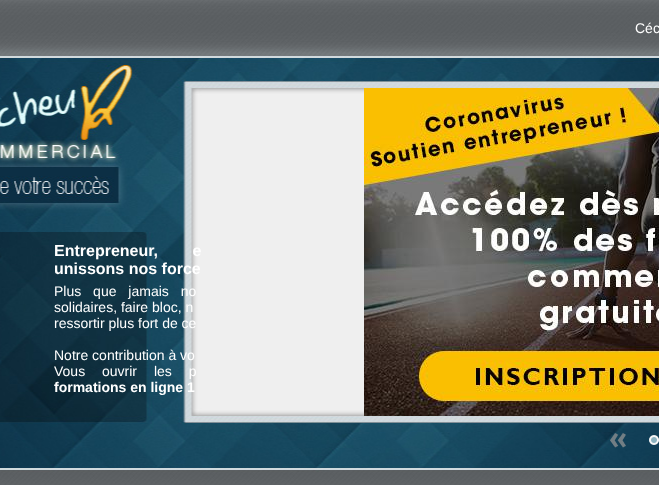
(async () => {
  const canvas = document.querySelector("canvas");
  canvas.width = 659;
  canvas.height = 485;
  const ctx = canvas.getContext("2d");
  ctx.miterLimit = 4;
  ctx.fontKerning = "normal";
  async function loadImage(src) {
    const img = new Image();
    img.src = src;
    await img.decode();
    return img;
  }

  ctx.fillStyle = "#ffffff";
  ctx.fillRect(0, 0, 659, 485);
  ctx.drawImage(await loadImage("img/1.png"), 0, 0, 659, 485);
  ctx.drawImage(await loadImage("img/2.png"), 364, 88, 295, 328);
  ctx.drawImage(await loadImage("img/3.png"), 610, 433, 16, 15);
  ctx.drawImage(await loadImage("img/4.png"), 649, 435, 10, 10);
  ctx.font = "14px Liberation Sans";
  ctx.fillText("Céc", 635, 33);
  ctx.wordSpacing = "30px";
  ctx.font = "bold 16px Liberation Sans";
  ctx.fillText("Entrepreneur, e", 54, 256);
  ctx.wordSpacing = "0px";
  ctx.fillText("unissons nos force", 54, 274);
  ctx.wordSpacing = "8px";
  ctx.font = "14px Liberation Sans";
  ctx.fillText("Plus que jamais no", 54, 296);
  ctx.wordSpacing = "0px";
  for (const [text, x, y] of [
    ["solidaires, faire bloc, n", 54, 312],
    ["ressortir plus fort de ce", 54, 328],
    ["Notre contribution à vo", 54, 360],
  ]) {
    ctx.fillText(text, x, y);
  }
  ctx.wordSpacing = "13px";
  ctx.fillText("Vous ouvrir les p", 54, 376);
  ctx.wordSpacing = "0px";
  ctx.font = "bold 14px Liberation Sans";
  ctx.fillText("formations en ligne 1", 54, 392);
})();
